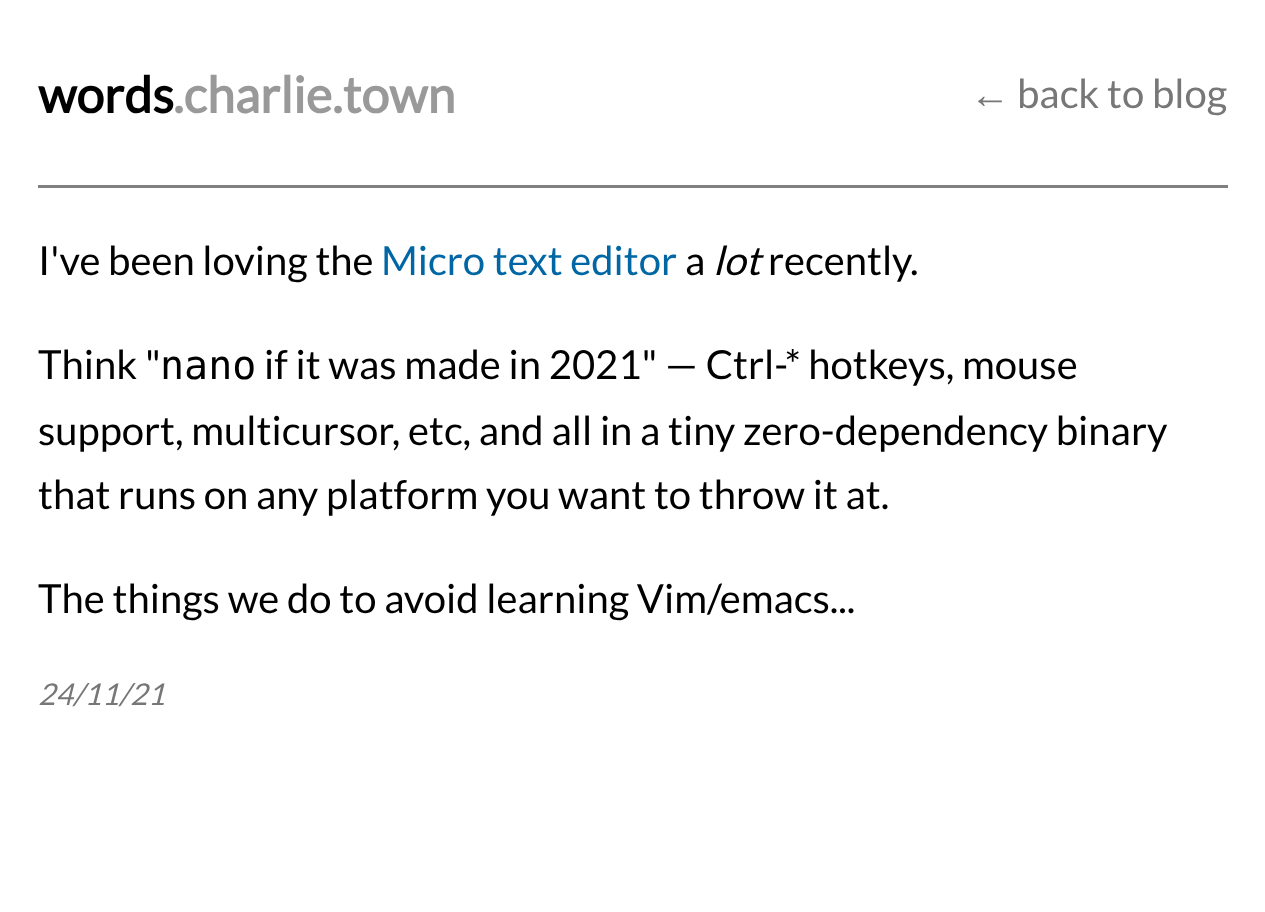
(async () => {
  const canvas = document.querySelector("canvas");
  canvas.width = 1265;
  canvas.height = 912;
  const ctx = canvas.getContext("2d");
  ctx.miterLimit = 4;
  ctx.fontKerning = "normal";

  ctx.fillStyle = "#ffffff";
  ctx.fillRect(0, 0, 1265, 912);
  ctx.fillStyle = "#808080";
  ctx.fillRect(38, 185, 1190, 3);
  ctx.font = "bold 50px Lato";
  ctx.fillStyle = "#000000";
  ctx.fillText("words", 38, 113);
  ctx.fillStyle = "#999999";
  ctx.fillText(".charlie.town", 173, 113);
  ctx.font = "40px Liberation Sans";
  ctx.fillStyle = "#777777";
  ctx.fillText("←", 970, 108);
  ctx.font = "40px Lato";
  ctx.fillText("back to blog", 1017, 108);
  ctx.fillStyle = "#000000";
  ctx.fillText("I've been loving the", 38, 275);
  ctx.fillStyle = "#0167a4";
  ctx.fillText("Micro text editor", 381, 275);
  ctx.fillStyle = "#000000";
  ctx.fillText("a", 685, 275);
  ctx.font = "italic 40px Lato";
  ctx.fillText("lot", 713, 275);
  ctx.font = "40px Lato";
  ctx.fillText("recently.", 768, 275);
  ctx.fillText("Think \"", 38, 379);
  ctx.font = "40px DejaVu Sans Mono";
  ctx.fillText("nano", 160, 379);
  ctx.font = "40px Lato";
  for (const [text, x, y] of [
    ["if it was made in 2021\" — Ctrl-* hotkeys, mouse", 264, 379],
    ["support, multicursor, etc, and all in a tiny zero-dependency binary", 38, 445],
    ["that runs on any platform you want to throw it at.", 38, 509],
    ["The things we do to avoid learning Vim/emacs...", 38, 613],
  ]) {
    ctx.fillText(text, x, y);
  }
  ctx.font = "italic 30px Lato";
  ctx.fillStyle = "#777777";
  ctx.fillText("24/11/21", 38, 705);
})();
